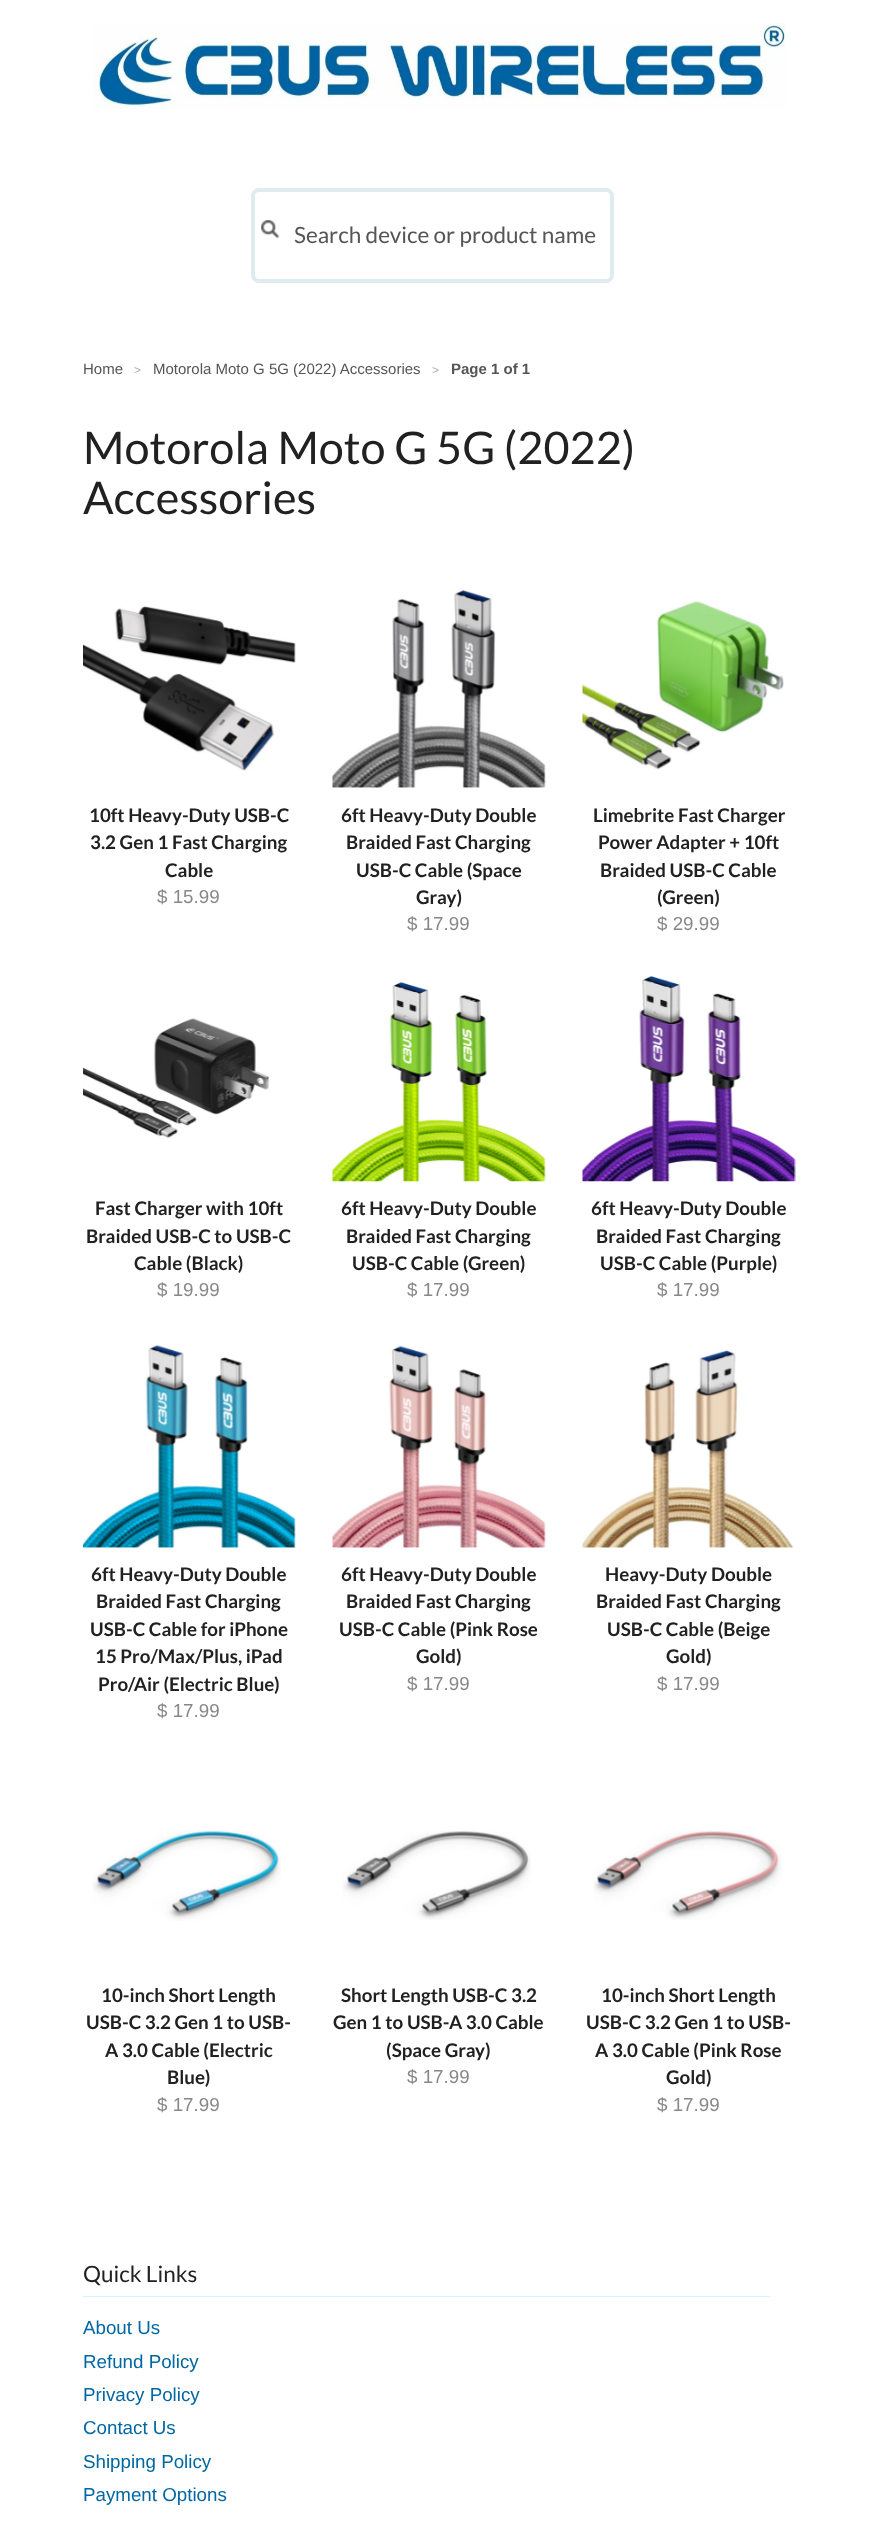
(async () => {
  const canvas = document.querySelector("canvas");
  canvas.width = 877;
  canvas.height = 2522;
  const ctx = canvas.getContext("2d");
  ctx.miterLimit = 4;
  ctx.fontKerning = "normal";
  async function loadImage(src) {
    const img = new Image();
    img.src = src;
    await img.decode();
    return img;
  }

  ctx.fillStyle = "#ffffff";
  ctx.fillRect(0, 0, 877, 2522);
  ctx.drawImage(await loadImage("img/1.png"), 93, 23, 693, 86);
  ctx.beginPath();
  ctx.roundRect(253, 190, 359, 91, 6);
  ctx.strokeStyle = "#dfecef";
  ctx.lineWidth = 4;
  ctx.stroke();
  ctx.drawImage(await loadImage("img/2.png"), 261, 220, 19, 19);
  ctx.drawImage(await loadImage("img/3.png"), 83, 606, 213, 165);
  ctx.drawImage(await loadImage("img/4.png"), 332, 589, 214, 199);
  ctx.drawImage(await loadImage("img/5.png"), 582, 601, 202, 169);
  ctx.drawImage(await loadImage("img/6.png"), 83, 1018, 187, 121);
  ctx.drawImage(await loadImage("img/7.png"), 332, 982, 214, 200);
  ctx.drawImage(await loadImage("img/8.png"), 582, 976, 214, 206);
  ctx.drawImage(await loadImage("img/9.png"), 83, 1344, 213, 204);
  ctx.drawImage(await loadImage("img/10.png"), 332, 1345, 214, 203);
  ctx.drawImage(await loadImage("img/11.png"), 582, 1350, 212, 198);
  ctx.drawImage(await loadImage("img/12.png"), 92, 1830, 189, 91);
  ctx.drawImage(await loadImage("img/13.png"), 342, 1831, 189, 89);
  ctx.drawImage(await loadImage("img/14.png"), 594, 1830, 188, 90);
  ctx.fillStyle = "#cff6ff";
  ctx.fillRect(83, 2296, 687, 1);
  ctx.font = "22.5px Lato";
  ctx.fillStyle = "#555555";
  ctx.fillText("Search device or product name", 294, 243);
  ctx.font = "15px Liberation Sans";
  ctx.fillText("Home", 83, 374);
  ctx.font = "12px Liberation Sans";
  ctx.fillStyle = "#aaaaaa";
  ctx.fillText(">", 134, 374);
  ctx.font = "15px Liberation Sans";
  ctx.fillStyle = "#555555";
  ctx.fillText("Motorola Moto G 5G (2022) Accessories", 153, 374);
  ctx.font = "12px Liberation Sans";
  ctx.fillStyle = "#aaaaaa";
  ctx.fillText(">", 432, 374);
  ctx.font = "bold 15px Liberation Sans";
  ctx.fillStyle = "#555555";
  ctx.fillText("Page 1 of 1", 451, 374);
  ctx.font = "45px Lato";
  ctx.fillStyle = "#212121";
  ctx.fillText("Motorola Moto G 5G (2022)", 83, 464);
  ctx.fillText("Accessories", 83, 514);
  ctx.font = "bold 18.75px Lato";
  for (const [text, x, y] of [
    ["10ft Heavy-Duty USB-C", 89, 822],
    ["3.2 Gen 1 Fast Charging", 90, 849],
    ["Cable", 165, 877],
  ]) {
    ctx.fillText(text, x, y);
  }
  ctx.font = "18.75px Liberation Sans";
  ctx.fillStyle = "#888888";
  ctx.fillText("$ 15.99", 157, 903);
  ctx.font = "bold 18.75px Lato";
  ctx.fillStyle = "#212121";
  for (const [text, x, y] of [
    ["6ft Heavy-Duty Double", 341, 822],
    ["Braided Fast Charging", 346, 849],
    ["USB-C Cable (Space", 356, 877],
    ["Gray)", 416, 904],
  ]) {
    ctx.fillText(text, x, y);
  }
  ctx.font = "18.75px Liberation Sans";
  ctx.fillStyle = "#888888";
  ctx.fillText("$ 17.99", 407, 930);
  ctx.font = "bold 18.75px Lato";
  ctx.fillStyle = "#212121";
  for (const [text, x, y] of [
    ["Limebrite Fast Charger", 593, 822],
    ["Power Adapter + 10ft", 598, 849],
    ["Braided USB-C Cable", 600, 877],
    ["(Green)", 657, 904],
  ]) {
    ctx.fillText(text, x, y);
  }
  ctx.font = "18.75px Liberation Sans";
  ctx.fillStyle = "#888888";
  ctx.fillText("$ 29.99", 657, 930);
  ctx.font = "bold 18.75px Lato";
  ctx.fillStyle = "#212121";
  for (const [text, x, y] of [
    ["Fast Charger with 10ft", 95, 1215],
    ["Braided USB-C to USB-C", 86, 1243],
    ["Cable (Black)", 134, 1270],
  ]) {
    ctx.fillText(text, x, y);
  }
  ctx.font = "18.75px Liberation Sans";
  ctx.fillStyle = "#888888";
  ctx.fillText("$ 19.99", 157, 1296);
  ctx.font = "bold 18.75px Lato";
  ctx.fillStyle = "#212121";
  for (const [text, x, y] of [
    ["6ft Heavy-Duty Double", 341, 1215],
    ["Braided Fast Charging", 346, 1243],
    ["USB-C Cable (Green)", 352, 1270],
  ]) {
    ctx.fillText(text, x, y);
  }
  ctx.font = "18.75px Liberation Sans";
  ctx.fillStyle = "#888888";
  ctx.fillText("$ 17.99", 407, 1296);
  ctx.font = "bold 18.75px Lato";
  ctx.fillStyle = "#212121";
  for (const [text, x, y] of [
    ["6ft Heavy-Duty Double", 591, 1215],
    ["Braided Fast Charging", 596, 1243],
    ["USB-C Cable (Purple)", 600, 1270],
  ]) {
    ctx.fillText(text, x, y);
  }
  ctx.font = "18.75px Liberation Sans";
  ctx.fillStyle = "#888888";
  ctx.fillText("$ 17.99", 657, 1296);
  ctx.font = "bold 18.75px Lato";
  ctx.fillStyle = "#212121";
  for (const [text, x, y] of [
    ["6ft Heavy-Duty Double", 91, 1581],
    ["Braided Fast Charging", 96, 1608],
    ["USB-C Cable for iPhone", 90, 1636],
    ["15 Pro/Max/Plus, iPad", 95, 1663],
    ["Pro/Air (Electric Blue)", 98, 1691],
  ]) {
    ctx.fillText(text, x, y);
  }
  ctx.font = "18.75px Liberation Sans";
  ctx.fillStyle = "#888888";
  ctx.fillText("$ 17.99", 157, 1717);
  ctx.font = "bold 18.75px Lato";
  ctx.fillStyle = "#212121";
  for (const [text, x, y] of [
    ["6ft Heavy-Duty Double", 341, 1581],
    ["Braided Fast Charging", 346, 1608],
    ["USB-C Cable (Pink Rose", 339, 1636],
    ["Gold)", 416, 1663],
  ]) {
    ctx.fillText(text, x, y);
  }
  ctx.font = "18.75px Liberation Sans";
  ctx.fillStyle = "#888888";
  ctx.fillText("$ 17.99", 407, 1690);
  ctx.font = "bold 18.75px Lato";
  ctx.fillStyle = "#212121";
  for (const [text, x, y] of [
    ["Heavy-Duty Double", 605, 1581],
    ["Braided Fast Charging", 596, 1608],
    ["USB-C Cable (Beige", 607, 1636],
    ["Gold)", 666, 1663],
  ]) {
    ctx.fillText(text, x, y);
  }
  ctx.font = "18.75px Liberation Sans";
  ctx.fillStyle = "#888888";
  ctx.fillText("$ 17.99", 657, 1690);
  ctx.font = "bold 18.75px Lato";
  ctx.fillStyle = "#212121";
  for (const [text, x, y] of [
    ["10-inch Short Length", 101, 2002],
    ["USB-C 3.2 Gen 1 to USB-", 86, 2029],
    ["A 3.0 Cable (Electric", 105, 2057],
    ["Blue)", 167, 2084],
  ]) {
    ctx.fillText(text, x, y);
  }
  ctx.font = "18.75px Liberation Sans";
  ctx.fillStyle = "#888888";
  ctx.fillText("$ 17.99", 157, 2111);
  ctx.font = "bold 18.75px Lato";
  ctx.fillStyle = "#212121";
  for (const [text, x, y] of [
    ["Short Length USB-C 3.2", 341, 2002],
    ["Gen 1 to USB-A 3.0 Cable", 333, 2029],
    ["(Space Gray)", 386, 2057],
  ]) {
    ctx.fillText(text, x, y);
  }
  ctx.font = "18.75px Liberation Sans";
  ctx.fillStyle = "#888888";
  ctx.fillText("$ 17.99", 407, 2083);
  ctx.font = "bold 18.75px Lato";
  ctx.fillStyle = "#212121";
  for (const [text, x, y] of [
    ["10-inch Short Length", 601, 2002],
    ["USB-C 3.2 Gen 1 to USB-", 586, 2029],
    ["A 3.0 Cable (Pink Rose", 595, 2057],
    ["Gold)", 666, 2084],
  ]) {
    ctx.fillText(text, x, y);
  }
  ctx.font = "18.75px Liberation Sans";
  ctx.fillStyle = "#888888";
  ctx.fillText("$ 17.99", 657, 2111);
  ctx.font = "22.5px Lato";
  ctx.fillStyle = "#212121";
  ctx.fillText("Quick Links", 83, 2282);
  ctx.font = "18.75px Liberation Sans";
  ctx.fillStyle = "#0067a2";
  for (const [text, x, y] of [
    ["About Us", 83, 2334],
    ["Refund Policy", 83, 2368],
    ["Privacy Policy", 83, 2401],
    ["Contact Us", 83, 2434],
    ["Shipping Policy", 83, 2468],
    ["Payment Options", 83, 2501],
  ]) {
    ctx.fillText(text, x, y);
  }
})();
